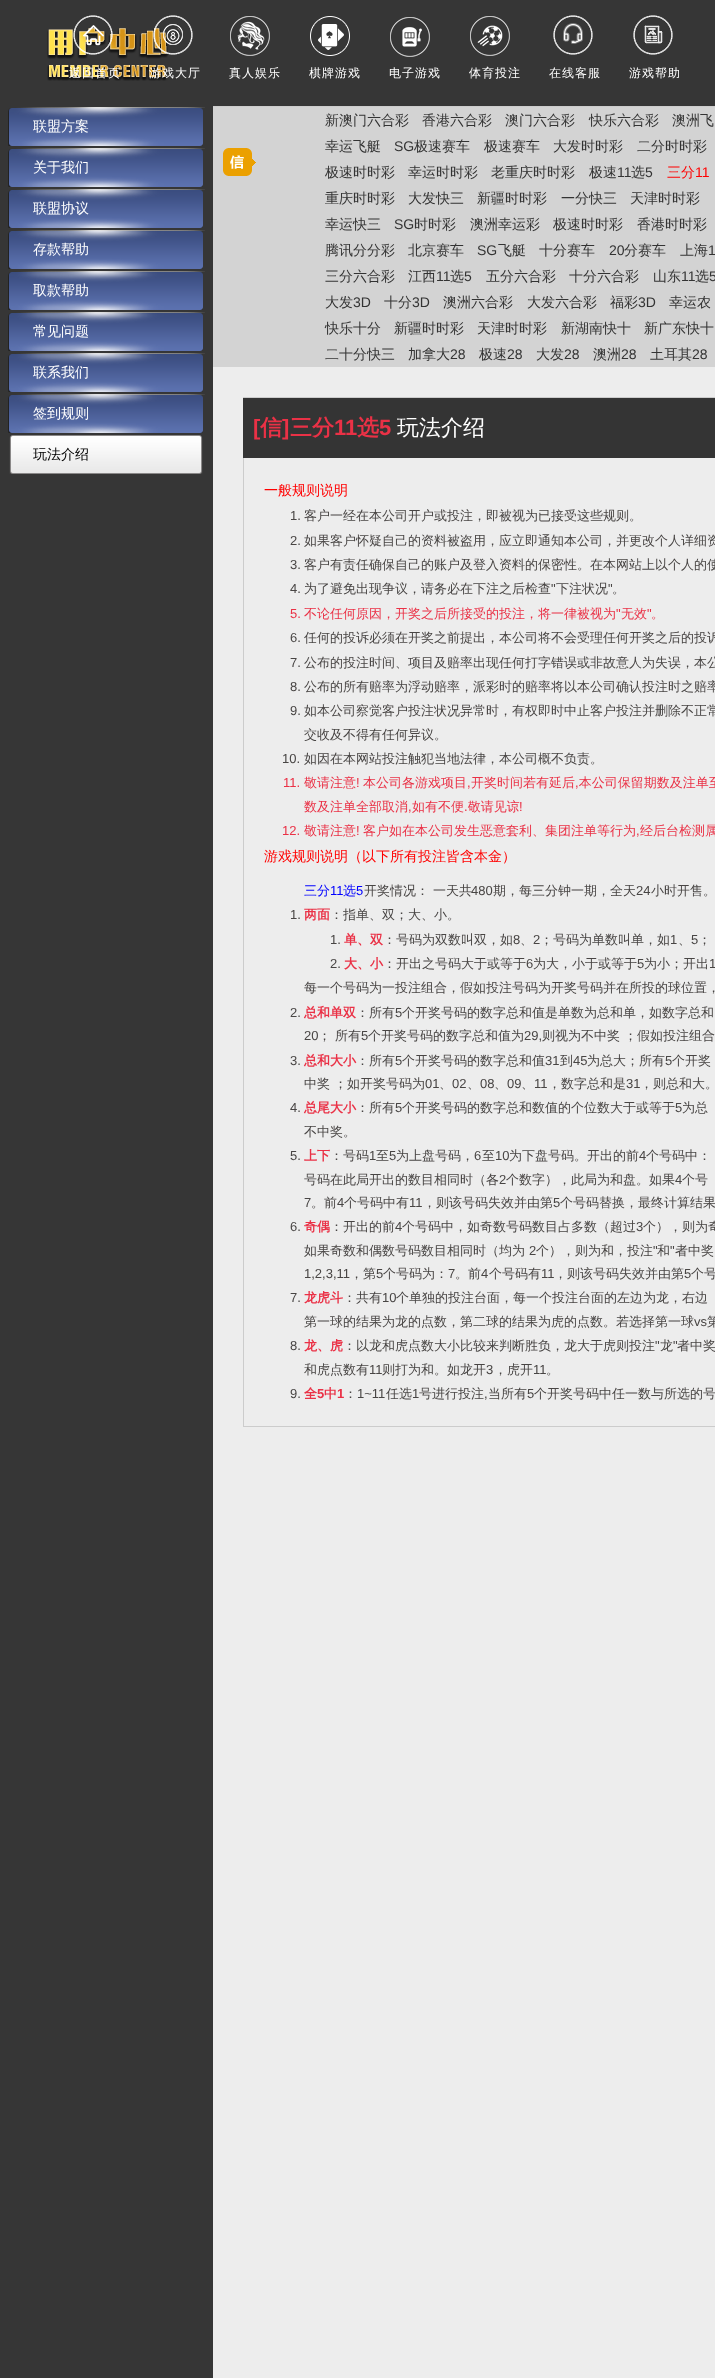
(async () => {
  const canvas = document.querySelector("canvas");
  canvas.width = 715;
  canvas.height = 2378;
  const ctx = canvas.getContext("2d");
  ctx.miterLimit = 4;
  ctx.fontKerning = "normal";
  async function loadImage(src) {
    const img = new Image();
    img.src = src;
    await img.decode();
    return img;
  }

  ctx.fillStyle = "#363636";
  ctx.fillRect(0, 0, 715, 2378);
  ctx.drawImage(await loadImage("img/1.png"), 47, 28, 121, 53);
  ctx.drawImage(await loadImage("img/2.png"), 73, 15, 40, 40);
  ctx.drawImage(await loadImage("img/3.png"), 153, 15, 40, 40);
  ctx.drawImage(await loadImage("img/4.png"), 230, 16, 40, 40);
  ctx.drawImage(await loadImage("img/5.png"), 310, 16, 40, 40);
  ctx.drawImage(await loadImage("img/6.png"), 390, 17, 40, 40);
  ctx.drawImage(await loadImage("img/7.png"), 470, 16, 40, 40);
  ctx.drawImage(await loadImage("img/8.png"), 553, 15, 40, 40);
  ctx.drawImage(await loadImage("img/9.png"), 633, 15, 40, 40);
  ctx.drawImage(await loadImage("img/10.png"), 8, 107, 197, 39);
  ctx.drawImage(await loadImage("img/10.png"), 8, 148, 197, 39);
  ctx.drawImage(await loadImage("img/10.png"), 8, 189, 197, 39);
  ctx.drawImage(await loadImage("img/10.png"), 8, 230, 197, 39);
  ctx.drawImage(await loadImage("img/10.png"), 8, 271, 197, 39);
  ctx.drawImage(await loadImage("img/10.png"), 8, 312, 197, 39);
  ctx.drawImage(await loadImage("img/10.png"), 8, 353, 197, 39);
  ctx.drawImage(await loadImage("img/10.png"), 8, 394, 197, 39);
  ctx.drawImage(await loadImage("img/11.png"), 9, 435, 194, 39);
  for (const [x, y, w, h, color] of [
    [213, 367, 502, 2011, "#ededed"],
    [213, 107, 502, 260, "#d3d3d3"],
    [213, 106, 502, 1, "#cccccc"],
  ]) {
    ctx.fillStyle = color;
    ctx.fillRect(x, y, w, h);
  }
  ctx.drawImage(await loadImage("img/12.png"), 223, 148, 33, 28);
  for (const [x, y, w, h, color] of [
    [243, 398, 472, 60, "#343434"],
    [243, 397, 472, 1, "#cccccc"],
    [243, 1426, 472, 1, "#cccccc"],
    [243, 458, 1, 969, "#cccccc"],
  ]) {
    ctx.fillStyle = color;
    ctx.fillRect(x, y, w, h);
  }
  ctx.letterSpacing = "1px";
  ctx.font = "500 12px WenQuanYi Zen Hei";
  ctx.fillStyle = "#ffffff";
  for (const [text, x, y] of [
    ["返回首页", 69, 77],
    ["游戏大厅", 149, 77],
    ["真人娱乐", 229, 77],
    ["棋牌游戏", 309, 77],
    ["电子游戏", 389, 77],
    ["体育投注", 469, 77],
    ["在线客服", 549, 77],
    ["游戏帮助", 629, 77],
  ]) {
    ctx.fillText(text, x, y);
  }
  ctx.letterSpacing = "0px";
  ctx.font = "500 14px WenQuanYi Zen Hei";
  for (const [text, x, y] of [
    ["联盟方案", 33, 131],
    ["关于我们", 33, 172],
    ["联盟协议", 33, 213],
    ["存款帮助", 33, 254],
    ["取款帮助", 33, 295],
    ["常见问题", 33, 336],
    ["联系我们", 33, 377],
    ["签到规则", 33, 418],
  ]) {
    ctx.fillText(text, x, y);
  }
  ctx.fillStyle = "#000000";
  ctx.fillText("玩法介绍", 33, 459);
  ctx.fillStyle = "#333333";
  for (const [text, x, y] of [
    ["新澳门六合彩", 325, 125],
    ["香港六合彩", 422, 125],
    ["澳门六合彩", 505, 125],
    ["快乐六合彩", 589, 125],
    ["澳洲飞", 672, 125],
    ["幸运飞艇", 325, 151],
  ]) {
    ctx.fillText(text, x, y);
  }
  ctx.font = "14px Liberation Sans";
  ctx.fillText("SG", 394, 151);
  ctx.font = "500 14px WenQuanYi Zen Hei";
  for (const [text, x, y] of [
    ["极速赛车", 414, 151],
    ["极速赛车", 484, 151],
    ["大发时时彩", 553, 151],
    ["二分时时彩", 637, 151],
    ["极速时时彩", 325, 177],
    ["幸运时时彩", 408, 177],
    ["老重庆时时彩", 491, 177],
    ["极速", 589, 177],
  ]) {
    ctx.fillText(text, x, y);
  }
  ctx.font = "14px Liberation Sans";
  ctx.fillText("11", 617, 177);
  ctx.font = "500 14px WenQuanYi Zen Hei";
  ctx.fillText("选", 631, 177);
  ctx.font = "14px Liberation Sans";
  ctx.fillText("5", 645, 177);
  ctx.font = "500 14px WenQuanYi Zen Hei";
  ctx.fillStyle = "#ff0000";
  ctx.fillText("三分", 667, 177);
  ctx.font = "14px Liberation Sans";
  ctx.fillText("11", 695, 177);
  ctx.font = "500 14px WenQuanYi Zen Hei";
  ctx.fillStyle = "#333333";
  for (const [text, x, y] of [
    ["重庆时时彩", 325, 203],
    ["大发快三", 408, 203],
    ["新疆时时彩", 477, 203],
    ["一分快三", 561, 203],
    ["天津时时彩", 630, 203],
    ["幸运快三", 325, 229],
  ]) {
    ctx.fillText(text, x, y);
  }
  ctx.font = "14px Liberation Sans";
  ctx.fillText("SG", 394, 229);
  ctx.font = "500 14px WenQuanYi Zen Hei";
  for (const [text, x, y] of [
    ["时时彩", 414, 229],
    ["澳洲幸运彩", 470, 229],
    ["极速时时彩", 553, 229],
    ["香港时时彩", 637, 229],
    ["腾讯分分彩", 325, 255],
    ["北京赛车", 408, 255],
  ]) {
    ctx.fillText(text, x, y);
  }
  ctx.font = "14px Liberation Sans";
  ctx.fillText("SG", 477, 255);
  ctx.font = "500 14px WenQuanYi Zen Hei";
  ctx.fillText("飞艇", 498, 255);
  ctx.fillText("十分赛车", 539, 255);
  ctx.font = "14px Liberation Sans";
  ctx.fillText("20", 609, 255);
  ctx.font = "500 14px WenQuanYi Zen Hei";
  ctx.fillText("分赛车", 624, 255);
  ctx.fillText("上海", 680, 255);
  ctx.font = "14px Liberation Sans";
  ctx.fillText("1", 708, 255);
  ctx.font = "500 14px WenQuanYi Zen Hei";
  ctx.fillText("三分六合彩", 325, 281);
  ctx.fillText("江西", 408, 281);
  ctx.font = "14px Liberation Sans";
  ctx.fillText("11", 436, 281);
  ctx.font = "500 14px WenQuanYi Zen Hei";
  ctx.fillText("选", 450, 281);
  ctx.font = "14px Liberation Sans";
  ctx.fillText("5", 464, 281);
  ctx.font = "500 14px WenQuanYi Zen Hei";
  for (const [text, x, y] of [
    ["五分六合彩", 486, 281],
    ["十分六合彩", 569, 281],
    ["山东", 653, 281],
  ]) {
    ctx.fillText(text, x, y);
  }
  ctx.font = "14px Liberation Sans";
  ctx.fillText("11", 681, 281);
  ctx.font = "500 14px WenQuanYi Zen Hei";
  ctx.fillText("选", 695, 281);
  ctx.font = "14px Liberation Sans";
  ctx.fillText("5", 709, 281);
  ctx.font = "500 14px WenQuanYi Zen Hei";
  ctx.fillText("大发", 325, 307);
  ctx.font = "14px Liberation Sans";
  ctx.fillText("3D", 353, 307);
  ctx.font = "500 14px WenQuanYi Zen Hei";
  ctx.fillText("十分", 384, 307);
  ctx.font = "14px Liberation Sans";
  ctx.fillText("3D", 412, 307);
  ctx.font = "500 14px WenQuanYi Zen Hei";
  for (const [text, x, y] of [
    ["澳洲六合彩", 443, 307],
    ["大发六合彩", 527, 307],
    ["福彩", 610, 307],
  ]) {
    ctx.fillText(text, x, y);
  }
  ctx.font = "14px Liberation Sans";
  ctx.fillText("3D", 638, 307);
  ctx.font = "500 14px WenQuanYi Zen Hei";
  for (const [text, x, y] of [
    ["幸运农", 669, 307],
    ["快乐十分", 325, 333],
    ["新疆时时彩", 394, 333],
    ["天津时时彩", 477, 333],
    ["新湖南快十", 561, 333],
    ["新广东快十", 644, 333],
    ["二十分快三", 325, 359],
    ["加拿大", 408, 359],
  ]) {
    ctx.fillText(text, x, y);
  }
  ctx.font = "14px Liberation Sans";
  ctx.fillText("28", 450, 359);
  ctx.font = "500 14px WenQuanYi Zen Hei";
  ctx.fillText("极速", 479, 359);
  ctx.font = "14px Liberation Sans";
  ctx.fillText("28", 507, 359);
  ctx.font = "500 14px WenQuanYi Zen Hei";
  ctx.fillText("大发", 536, 359);
  ctx.font = "14px Liberation Sans";
  ctx.fillText("28", 564, 359);
  ctx.font = "500 14px WenQuanYi Zen Hei";
  ctx.fillText("澳洲", 593, 359);
  ctx.font = "14px Liberation Sans";
  ctx.fillText("28", 621, 359);
  ctx.font = "500 14px WenQuanYi Zen Hei";
  ctx.fillText("土耳其", 650, 359);
  ctx.font = "14px Liberation Sans";
  ctx.fillText("28", 692, 359);
  ctx.font = "bold 22px Liberation Sans";
  ctx.fillStyle = "#ea3146";
  ctx.fillText("[", 253, 435);
  ctx.font = "bold 22px WenQuanYi Zen Hei";
  ctx.fillText("信", 260, 435);
  ctx.font = "bold 22px Liberation Sans";
  ctx.fillText("]", 282, 435);
  ctx.font = "bold 22px WenQuanYi Zen Hei";
  ctx.fillText("三分", 290, 435);
  ctx.font = "bold 22px Liberation Sans";
  ctx.fillText("11", 334, 435);
  ctx.font = "bold 22px WenQuanYi Zen Hei";
  ctx.fillText("选", 357, 435);
  ctx.font = "bold 22px Liberation Sans";
  ctx.fillText("5", 379, 435);
  ctx.font = "500 22px WenQuanYi Zen Hei";
  ctx.fillStyle = "#ffffff";
  ctx.fillText("玩法介绍", 397, 435);
  ctx.font = "500 14px WenQuanYi Zen Hei";
  ctx.fillStyle = "#ff0000";
  ctx.fillText("一般规则说明", 264, 495);
  ctx.font = "13px Liberation Sans";
  ctx.fillStyle = "#484544";
  ctx.fillText("1.", 290, 520);
  ctx.font = "500 13px WenQuanYi Zen Hei";
  ctx.fillText("客户一经在本公司开户或投注，即被视为已接受这些规则。", 304, 520);
  ctx.font = "13px Liberation Sans";
  ctx.fillText("2.", 290, 545);
  ctx.font = "500 13px WenQuanYi Zen Hei";
  ctx.fillText("如果客户怀疑自己的资料被盗用，应立即通知本公司，并更改个人详细资", 304, 545);
  ctx.font = "13px Liberation Sans";
  ctx.fillText("3.", 290, 569);
  ctx.font = "500 13px WenQuanYi Zen Hei";
  ctx.fillText("客户有责任确保自己的账户及登入资料的保密性。在本网站上以个人的使", 304, 569);
  ctx.font = "13px Liberation Sans";
  ctx.fillText("4.", 290, 593);
  ctx.font = "500 13px WenQuanYi Zen Hei";
  ctx.fillText("为了避免出现争议，请务必在下注之后检查", 304, 593);
  ctx.font = "13px Liberation Sans";
  ctx.fillText("\"", 551, 593);
  ctx.font = "500 13px WenQuanYi Zen Hei";
  ctx.fillText("下注状况", 556, 593);
  ctx.font = "13px Liberation Sans";
  ctx.fillText("\"", 608, 593);
  ctx.font = "500 13px WenQuanYi Zen Hei";
  ctx.fillText("。", 612, 593);
  ctx.font = "13px Liberation Sans";
  ctx.fillStyle = "#ea3146";
  ctx.fillText("5.", 290, 618);
  ctx.font = "500 13px WenQuanYi Zen Hei";
  ctx.fillText("不论任何原因，开奖之后所接受的投注，将一律被视为", 304, 618);
  ctx.font = "13px Liberation Sans";
  ctx.fillText("\"", 616, 618);
  ctx.font = "500 13px WenQuanYi Zen Hei";
  ctx.fillText("无效", 621, 618);
  ctx.font = "13px Liberation Sans";
  ctx.fillText("\"", 647, 618);
  ctx.font = "500 13px WenQuanYi Zen Hei";
  ctx.fillText("。", 651, 618);
  ctx.font = "13px Liberation Sans";
  ctx.fillStyle = "#484544";
  ctx.fillText("6.", 290, 642);
  ctx.font = "500 13px WenQuanYi Zen Hei";
  ctx.fillText("任何的投诉必须在开奖之前提出，本公司将不会受理任何开奖之后的投诉", 304, 642);
  ctx.font = "13px Liberation Sans";
  ctx.fillText("7.", 290, 667);
  ctx.font = "500 13px WenQuanYi Zen Hei";
  ctx.fillText("公布的投注时间、项目及赔率出现任何打字错误或非故意人为失误，本公", 304, 667);
  ctx.font = "13px Liberation Sans";
  ctx.fillText("8.", 290, 691);
  ctx.font = "500 13px WenQuanYi Zen Hei";
  ctx.fillText("公布的所有赔率为浮动赔率，派彩时的赔率将以本公司确认投注时之赔率", 304, 691);
  ctx.font = "13px Liberation Sans";
  ctx.fillText("9.", 290, 715);
  ctx.font = "500 13px WenQuanYi Zen Hei";
  ctx.fillText("如本公司察觉客户投注状况异常时，有权即时中止客户投注并删除不正常", 304, 715);
  ctx.fillText("交收及不得有任何异议。", 304, 739);
  ctx.font = "13px Liberation Sans";
  ctx.fillText("10.", 282, 763);
  ctx.font = "500 13px WenQuanYi Zen Hei";
  ctx.fillText("如因在本网站投注触犯当地法律，本公司概不负责。", 304, 763);
  ctx.font = "13px Liberation Sans";
  ctx.fillStyle = "#ea3146";
  ctx.fillText("11.", 283, 787);
  ctx.font = "500 13px WenQuanYi Zen Hei";
  ctx.fillText("敬请注意", 304, 787);
  ctx.font = "13px Liberation Sans";
  ctx.fillText("!", 356, 787);
  ctx.font = "500 13px WenQuanYi Zen Hei";
  ctx.fillText("本公司各游戏项目 开奖时间若有延后 本公司保留期数及注单至", 363, 787);
  ctx.font = "13px Liberation Sans";
  ctx.fillText(",", 467, 787);
  ctx.fillText(",", 575, 787);
  ctx.font = "500 13px WenQuanYi Zen Hei";
  ctx.fillText("数及注单全部取消 如有不便 敬请见谅", 304, 811);
  ctx.font = "13px Liberation Sans";
  for (const [text, x, y] of [
    ["!", 519, 811],
    [",", 408, 811],
    [".", 464, 811],
    ["12.", 282, 835],
  ]) {
    ctx.fillText(text, x, y);
  }
  ctx.font = "500 13px WenQuanYi Zen Hei";
  ctx.fillText("敬请注意", 304, 835);
  ctx.font = "13px Liberation Sans";
  ctx.fillText("!", 356, 835);
  ctx.font = "500 13px WenQuanYi Zen Hei";
  ctx.fillText("客户如在本公司发生恶意套利、集团注单等行为", 363, 835);
  ctx.font = "13px Liberation Sans";
  ctx.fillText(",", 636, 835);
  ctx.font = "500 13px WenQuanYi Zen Hei";
  ctx.fillText("经后台检测属", 640, 835);
  ctx.font = "500 14px WenQuanYi Zen Hei";
  ctx.fillStyle = "#ff0000";
  ctx.fillText("游戏规则说明（以下所有投注皆含本金）", 264, 861);
  ctx.font = "500 13px WenQuanYi Zen Hei";
  ctx.fillStyle = "#0000ff";
  ctx.fillText("三分", 304, 895);
  ctx.font = "13px Liberation Sans";
  ctx.fillText("11", 330, 895);
  ctx.font = "500 13px WenQuanYi Zen Hei";
  ctx.fillText("选", 343, 895);
  ctx.font = "13px Liberation Sans";
  ctx.fillText("5", 356, 895);
  ctx.font = "500 13px WenQuanYi Zen Hei";
  ctx.fillStyle = "#484544";
  ctx.fillText("开奖情况： 一天共", 364, 895);
  ctx.font = "13px Liberation Sans";
  ctx.fillText("480", 471, 895);
  ctx.font = "500 13px WenQuanYi Zen Hei";
  ctx.fillText("期，每三分钟一期，全天", 493, 895);
  ctx.font = "13px Liberation Sans";
  ctx.fillText("24", 636, 895);
  ctx.font = "500 13px WenQuanYi Zen Hei";
  ctx.fillText("小时开售。", 651, 895);
  ctx.font = "13px Liberation Sans";
  ctx.fillText("1.", 290, 919);
  ctx.font = "bold 13px WenQuanYi Zen Hei";
  ctx.fillStyle = "#ea3146";
  ctx.fillText("两面", 304, 919);
  ctx.font = "500 13px WenQuanYi Zen Hei";
  ctx.fillStyle = "#484544";
  ctx.fillText("：指单、双；大、小。", 330, 919);
  ctx.font = "13px Liberation Sans";
  ctx.fillText("1.", 330, 944);
  ctx.font = "bold 13px WenQuanYi Zen Hei";
  ctx.fillStyle = "#ea3146";
  ctx.fillText("单、双", 344, 944);
  ctx.font = "500 13px WenQuanYi Zen Hei";
  ctx.fillStyle = "#484544";
  ctx.fillText("：号码为双数叫双，如", 383, 944);
  ctx.font = "13px Liberation Sans";
  ctx.fillText("8", 513, 944);
  ctx.font = "500 13px WenQuanYi Zen Hei";
  ctx.fillText("、", 520, 944);
  ctx.font = "13px Liberation Sans";
  ctx.fillText("2", 533, 944);
  ctx.font = "500 13px WenQuanYi Zen Hei";
  ctx.fillText("；号码为单数叫单，如", 540, 944);
  ctx.font = "13px Liberation Sans";
  ctx.fillText("1", 670, 944);
  ctx.font = "500 13px WenQuanYi Zen Hei";
  ctx.fillText("、", 678, 944);
  ctx.font = "13px Liberation Sans";
  ctx.fillText("5", 691, 944);
  ctx.font = "500 13px WenQuanYi Zen Hei";
  ctx.fillText("；", 698, 944);
  ctx.font = "13px Liberation Sans";
  ctx.fillText("2.", 330, 968);
  ctx.font = "bold 13px WenQuanYi Zen Hei";
  ctx.fillStyle = "#ea3146";
  ctx.fillText("大、小", 344, 968);
  ctx.font = "500 13px WenQuanYi Zen Hei";
  ctx.fillStyle = "#484544";
  ctx.fillText("：开出之号码大于或等于", 383, 968);
  ctx.font = "13px Liberation Sans";
  ctx.fillText("6", 526, 968);
  ctx.font = "500 13px WenQuanYi Zen Hei";
  ctx.fillText("为大，小于或等于", 533, 968);
  ctx.font = "13px Liberation Sans";
  ctx.fillText("5", 637, 968);
  ctx.font = "500 13px WenQuanYi Zen Hei";
  ctx.fillText("为小；开出", 644, 968);
  ctx.font = "13px Liberation Sans";
  ctx.fillText("1", 709, 968);
  ctx.font = "500 13px WenQuanYi Zen Hei";
  ctx.fillText("每一个号码为一投注组合，假如投注号码为开奖号码并在所投的球位置，", 304, 992);
  ctx.font = "13px Liberation Sans";
  ctx.fillText("2.", 290, 1017);
  ctx.font = "bold 13px WenQuanYi Zen Hei";
  ctx.fillStyle = "#ea3146";
  ctx.fillText("总和单双", 304, 1017);
  ctx.font = "500 13px WenQuanYi Zen Hei";
  ctx.fillStyle = "#484544";
  ctx.fillText("：所有", 356, 1017);
  ctx.font = "13px Liberation Sans";
  ctx.fillText("5", 395, 1017);
  ctx.font = "500 13px WenQuanYi Zen Hei";
  ctx.fillText("个开奖号码的数字总和值是单数为总和单，如数字总和", 402, 1017);
  ctx.font = "13px Liberation Sans";
  ctx.fillText("20", 304, 1040);
  ctx.font = "500 13px WenQuanYi Zen Hei";
  ctx.fillText("； 所有", 318, 1040);
  ctx.font = "13px Liberation Sans";
  ctx.fillText("5", 361, 1040);
  ctx.font = "500 13px WenQuanYi Zen Hei";
  ctx.fillText("个开奖号码的数字总和值为", 368, 1040);
  ctx.font = "13px Liberation Sans";
  ctx.fillText("29,", 524, 1040);
  ctx.font = "500 13px WenQuanYi Zen Hei";
  ctx.fillText("则视为不中奖 ；假如投注组合", 542, 1040);
  ctx.font = "13px Liberation Sans";
  ctx.fillText("3.", 290, 1065);
  ctx.font = "bold 13px WenQuanYi Zen Hei";
  ctx.fillStyle = "#ea3146";
  ctx.fillText("总和大小", 304, 1065);
  ctx.font = "500 13px WenQuanYi Zen Hei";
  ctx.fillStyle = "#484544";
  ctx.fillText("：所有", 356, 1065);
  ctx.font = "13px Liberation Sans";
  ctx.fillText("5", 395, 1065);
  ctx.font = "500 13px WenQuanYi Zen Hei";
  ctx.fillText("个开奖号码的数字总和值", 402, 1065);
  ctx.font = "13px Liberation Sans";
  ctx.fillText("31", 545, 1065);
  ctx.font = "500 13px WenQuanYi Zen Hei";
  ctx.fillText("到", 560, 1065);
  ctx.font = "13px Liberation Sans";
  ctx.fillText("45", 573, 1065);
  ctx.font = "500 13px WenQuanYi Zen Hei";
  ctx.fillText("为总大；所有", 587, 1065);
  ctx.font = "13px Liberation Sans";
  ctx.fillText("5", 665, 1065);
  ctx.font = "500 13px WenQuanYi Zen Hei";
  ctx.fillText("个开奖", 672, 1065);
  ctx.fillText("中奖 ；如开奖号码为", 304, 1088);
  ctx.font = "13px Liberation Sans";
  for (const [text, x, y] of [
    ["01", 425, 1088],
    ["02", 452, 1088],
    ["08", 480, 1088],
    ["09", 507, 1088],
    ["11", 534, 1088],
  ]) {
    ctx.fillText(text, x, y);
  }
  ctx.font = "500 13px WenQuanYi Zen Hei";
  ctx.fillText("，数字总和是", 548, 1088);
  ctx.font = "13px Liberation Sans";
  ctx.fillText("31", 626, 1088);
  ctx.font = "500 13px WenQuanYi Zen Hei";
  for (const [text, x, y] of [
    ["，则总和大。", 640, 1088],
    ["、", 439, 1088],
    ["、", 467, 1088],
    ["、", 494, 1088],
    ["、", 521, 1088],
  ]) {
    ctx.fillText(text, x, y);
  }
  ctx.font = "13px Liberation Sans";
  ctx.fillText("4.", 290, 1112);
  ctx.font = "bold 13px WenQuanYi Zen Hei";
  ctx.fillStyle = "#ea3146";
  ctx.fillText("总尾大小", 304, 1112);
  ctx.font = "500 13px WenQuanYi Zen Hei";
  ctx.fillStyle = "#484544";
  ctx.fillText("：所有", 356, 1112);
  ctx.font = "13px Liberation Sans";
  ctx.fillText("5", 395, 1112);
  ctx.font = "500 13px WenQuanYi Zen Hei";
  ctx.fillText("个开奖号码的数字总和数值的个位数大于或等于", 402, 1112);
  ctx.font = "13px Liberation Sans";
  ctx.fillText("5", 675, 1112);
  ctx.font = "500 13px WenQuanYi Zen Hei";
  ctx.fillText("为总", 682, 1112);
  ctx.fillText("不中奖。", 304, 1136);
  ctx.font = "13px Liberation Sans";
  ctx.fillText("5.", 290, 1160);
  ctx.font = "bold 13px WenQuanYi Zen Hei";
  ctx.fillStyle = "#ea3146";
  ctx.fillText("上下", 304, 1160);
  ctx.font = "500 13px WenQuanYi Zen Hei";
  ctx.fillStyle = "#484544";
  ctx.fillText("：号码", 330, 1160);
  ctx.font = "13px Liberation Sans";
  ctx.fillText("1", 369, 1160);
  ctx.font = "500 13px WenQuanYi Zen Hei";
  ctx.fillText("至", 376, 1160);
  ctx.font = "13px Liberation Sans";
  ctx.fillText("5", 389, 1160);
  ctx.font = "500 13px WenQuanYi Zen Hei";
  ctx.fillText("为上盘号码，", 396, 1160);
  ctx.font = "13px Liberation Sans";
  ctx.fillText("6", 474, 1160);
  ctx.font = "500 13px WenQuanYi Zen Hei";
  ctx.fillText("至", 482, 1160);
  ctx.font = "13px Liberation Sans";
  ctx.fillText("10", 495, 1160);
  ctx.font = "500 13px WenQuanYi Zen Hei";
  ctx.fillText("为下盘号码。开出的前", 509, 1160);
  ctx.font = "13px Liberation Sans";
  ctx.fillText("4", 639, 1160);
  ctx.font = "500 13px WenQuanYi Zen Hei";
  ctx.fillText("个号码中：", 646, 1160);
  ctx.fillText("号码在此局开出的数目相同时（各", 304, 1184);
  ctx.font = "13px Liberation Sans";
  ctx.fillText("2", 499, 1184);
  ctx.font = "500 13px WenQuanYi Zen Hei";
  ctx.fillText("个数字），此局为和盘。如果", 506, 1184);
  ctx.font = "13px Liberation Sans";
  ctx.fillText("4", 675, 1184);
  ctx.font = "500 13px WenQuanYi Zen Hei";
  ctx.fillText("个号", 682, 1184);
  ctx.font = "13px Liberation Sans";
  ctx.fillText("7", 304, 1207);
  ctx.font = "500 13px WenQuanYi Zen Hei";
  ctx.fillText("。前", 311, 1207);
  ctx.font = "13px Liberation Sans";
  ctx.fillText("4", 337, 1207);
  ctx.font = "500 13px WenQuanYi Zen Hei";
  ctx.fillText("个号码中有", 344, 1207);
  ctx.font = "13px Liberation Sans";
  ctx.fillText("11", 409, 1207);
  ctx.font = "500 13px WenQuanYi Zen Hei";
  ctx.fillText("，则该号码失效并由第", 423, 1207);
  ctx.font = "13px Liberation Sans";
  ctx.fillText("5", 553, 1207);
  ctx.font = "500 13px WenQuanYi Zen Hei";
  ctx.fillText("个号码替换，最终计算结果", 560, 1207);
  ctx.font = "13px Liberation Sans";
  ctx.fillText("6.", 290, 1231);
  ctx.font = "bold 13px WenQuanYi Zen Hei";
  ctx.fillStyle = "#ea3146";
  ctx.fillText("奇偶", 304, 1231);
  ctx.font = "500 13px WenQuanYi Zen Hei";
  ctx.fillStyle = "#484544";
  ctx.fillText("：开出的前", 330, 1231);
  ctx.font = "13px Liberation Sans";
  ctx.fillText("4", 395, 1231);
  ctx.font = "500 13px WenQuanYi Zen Hei";
  ctx.fillText("个号码中，如奇数号码数目占多数（超过", 402, 1231);
  ctx.font = "13px Liberation Sans";
  ctx.fillText("3", 636, 1231);
  ctx.font = "500 13px WenQuanYi Zen Hei";
  ctx.fillText("个），则为奇", 643, 1231);
  ctx.fillText("如果奇数和偶数号码数目相同时（均为", 304, 1255);
  ctx.font = "13px Liberation Sans";
  ctx.fillText("2", 529, 1255);
  ctx.font = "500 13px WenQuanYi Zen Hei";
  ctx.fillText("个），则为和，投注", 536, 1255);
  ctx.font = "13px Liberation Sans";
  ctx.fillText("\"", 653, 1255);
  ctx.font = "500 13px WenQuanYi Zen Hei";
  ctx.fillText("和", 657, 1255);
  ctx.font = "13px Liberation Sans";
  ctx.fillText("\"", 670, 1255);
  ctx.font = "500 13px WenQuanYi Zen Hei";
  ctx.fillText("者中奖", 675, 1255);
  ctx.font = "13px Liberation Sans";
  ctx.fillText("1,2,3,11", 304, 1278);
  ctx.font = "500 13px WenQuanYi Zen Hei";
  ctx.fillText("，第", 350, 1278);
  ctx.font = "13px Liberation Sans";
  ctx.fillText("5", 376, 1278);
  ctx.font = "500 13px WenQuanYi Zen Hei";
  ctx.fillText("个号码为：", 383, 1278);
  ctx.font = "13px Liberation Sans";
  ctx.fillText("7", 448, 1278);
  ctx.font = "500 13px WenQuanYi Zen Hei";
  ctx.fillText("。前", 455, 1278);
  ctx.font = "13px Liberation Sans";
  ctx.fillText("4", 481, 1278);
  ctx.font = "500 13px WenQuanYi Zen Hei";
  ctx.fillText("个号码有", 489, 1278);
  ctx.font = "13px Liberation Sans";
  ctx.fillText("11", 541, 1278);
  ctx.font = "500 13px WenQuanYi Zen Hei";
  ctx.fillText("，则该号码失效并由第", 554, 1278);
  ctx.font = "13px Liberation Sans";
  ctx.fillText("5", 684, 1278);
  ctx.font = "500 13px WenQuanYi Zen Hei";
  ctx.fillText("个号", 691, 1278);
  ctx.font = "13px Liberation Sans";
  ctx.fillText("7.", 290, 1302);
  ctx.font = "bold 13px WenQuanYi Zen Hei";
  ctx.fillStyle = "#ea3146";
  ctx.fillText("龙虎斗", 304, 1302);
  ctx.font = "500 13px WenQuanYi Zen Hei";
  ctx.fillStyle = "#484544";
  ctx.fillText("：共有", 343, 1302);
  ctx.font = "13px Liberation Sans";
  ctx.fillText("10", 382, 1302);
  ctx.font = "500 13px WenQuanYi Zen Hei";
  ctx.fillText("个单独的投注台面，每一个投注台面的左边为龙，右边", 396, 1302);
  ctx.fillText("第一球的结果为龙的点数，第二球的结果为虎的点数。若选择第一球", 304, 1326);
  ctx.font = "13px Liberation Sans";
  ctx.fillText("vs", 694, 1326);
  ctx.font = "500 13px WenQuanYi Zen Hei";
  ctx.fillText("第", 707, 1326);
  ctx.font = "13px Liberation Sans";
  ctx.fillText("8.", 290, 1350);
  ctx.font = "bold 13px WenQuanYi Zen Hei";
  ctx.fillStyle = "#ea3146";
  ctx.fillText("龙、虎", 304, 1350);
  ctx.font = "500 13px WenQuanYi Zen Hei";
  ctx.fillStyle = "#484544";
  ctx.fillText("：以龙和虎点数大小比较来判断胜负，龙大于虎则投注", 343, 1350);
  ctx.font = "13px Liberation Sans";
  ctx.fillText("\"", 655, 1350);
  ctx.font = "500 13px WenQuanYi Zen Hei";
  ctx.fillText("龙", 660, 1350);
  ctx.font = "13px Liberation Sans";
  ctx.fillText("\"", 673, 1350);
  ctx.font = "500 13px WenQuanYi Zen Hei";
  ctx.fillText("者中奖", 677, 1350);
  ctx.fillText("和虎点数有", 304, 1374);
  ctx.font = "13px Liberation Sans";
  ctx.fillText("11", 369, 1374);
  ctx.font = "500 13px WenQuanYi Zen Hei";
  ctx.fillText("则打为和。如龙开", 382, 1374);
  ctx.font = "13px Liberation Sans";
  ctx.fillText("3", 486, 1374);
  ctx.font = "500 13px WenQuanYi Zen Hei";
  ctx.fillText("，虎开", 494, 1374);
  ctx.font = "13px Liberation Sans";
  ctx.fillText("11", 533, 1374);
  ctx.font = "500 13px WenQuanYi Zen Hei";
  ctx.fillText("。", 546, 1374);
  ctx.font = "13px Liberation Sans";
  ctx.fillText("9.", 290, 1398);
  ctx.font = "bold 13px WenQuanYi Zen Hei";
  ctx.fillStyle = "#ea3146";
  ctx.fillText("全", 304, 1398);
  ctx.font = "bold 13px Liberation Sans";
  ctx.fillText("5", 317, 1398);
  ctx.font = "bold 13px WenQuanYi Zen Hei";
  ctx.fillText("中", 324, 1398);
  ctx.font = "bold 13px Liberation Sans";
  ctx.fillText("1", 337, 1398);
  ctx.font = "500 13px WenQuanYi Zen Hei";
  ctx.fillStyle = "#484544";
  ctx.fillText("：", 344, 1398);
  ctx.font = "13px Liberation Sans";
  ctx.fillText("1~11", 357, 1398);
  ctx.font = "500 13px WenQuanYi Zen Hei";
  ctx.fillText("任选", 386, 1398);
  ctx.font = "13px Liberation Sans";
  ctx.fillText("1", 412, 1398);
  ctx.font = "500 13px WenQuanYi Zen Hei";
  ctx.fillText("号进行投注 当所有", 419, 1398);
  ctx.font = "13px Liberation Sans";
  ctx.fillText("5", 527, 1398);
  ctx.font = "500 13px WenQuanYi Zen Hei";
  ctx.fillText("个开奖号码中任一数与所选的号", 534, 1398);
  ctx.font = "13px Liberation Sans";
  ctx.fillText(",", 484, 1398);
})();
